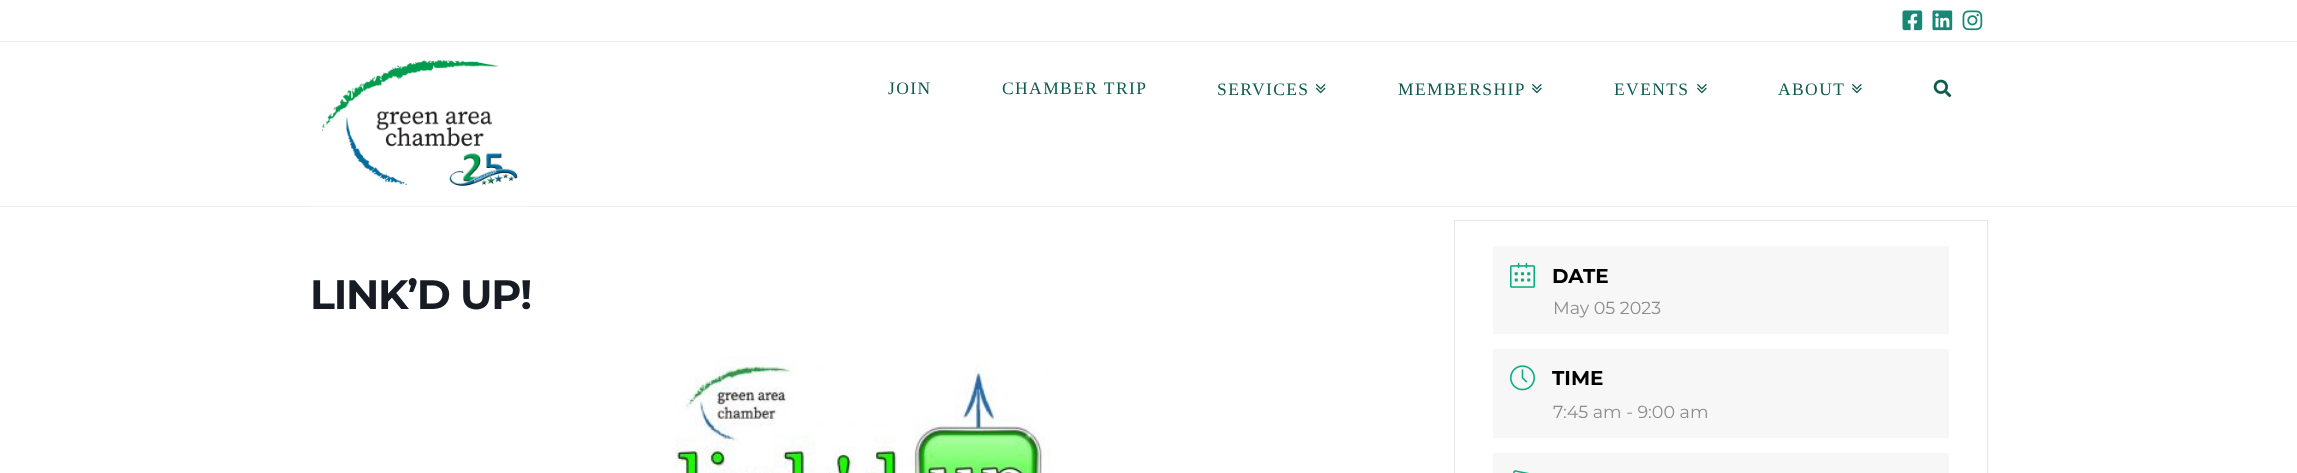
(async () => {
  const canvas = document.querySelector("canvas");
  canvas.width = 2297;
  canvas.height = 473;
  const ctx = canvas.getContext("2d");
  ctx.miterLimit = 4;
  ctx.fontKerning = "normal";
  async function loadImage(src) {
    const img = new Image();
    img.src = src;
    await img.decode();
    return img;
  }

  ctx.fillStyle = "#ffffff";
  ctx.fillRect(0, 0, 2297, 473);
  ctx.fillStyle = "#ececec";
  ctx.fillRect(0, 41, 2297, 1);
  ctx.drawImage(await loadImage("img/1.png"), 1902, 10, 21, 21);
  ctx.drawImage(await loadImage("img/2.png"), 1932, 10, 21, 21);
  ctx.drawImage(await loadImage("img/3.png"), 1962, 10, 21, 21);
  ctx.fillRect(0, 206, 2297, 1);
  ctx.drawImage(await loadImage("img/4.png"), 310, 59, 218, 148);
  ctx.drawImage(await loadImage("img/5.png"), 1315, 83, 11, 11);
  ctx.drawImage(await loadImage("img/6.png"), 1532, 83, 10, 11);
  ctx.drawImage(await loadImage("img/6.png"), 1697, 83, 10, 11);
  ctx.drawImage(await loadImage("img/6.png"), 1852, 83, 10, 11);
  ctx.drawImage(await loadImage("img/7.png"), 1933, 79, 19, 19);
  ctx.drawImage(await loadImage("img/8.png"), 675, 356, 375, 117);
  ctx.strokeStyle = "#e6e6e6";
  ctx.strokeRect(1454.5, 220.5, 533, 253);
  ctx.fillStyle = "#f7f7f7";
  ctx.fillRect(1493, 246, 456, 88);
  ctx.drawImage(await loadImage("img/9.png"), 1510, 262, 25, 26);
  ctx.fillRect(1493, 349, 456, 89);
  ctx.drawImage(await loadImage("img/10.png"), 1510, 365, 25, 26);
  ctx.fillRect(1493, 453, 456, 20);
  ctx.drawImage(await loadImage("img/11.png"), 1513, 470, 16, 3);
  ctx.letterSpacing = "1.4px";
  ctx.font = "17.5px Liberation Serif";
  ctx.fillStyle = "#105b4f";
  for (const [text, x, y] of [
    ["JOIN", 888, 94],
    ["CHAMBER TRIP", 1002, 94],
    ["SERVICES", 1217, 95],
    ["MEMBERSHIP", 1398, 95],
    ["EVENTS", 1614, 95],
    ["ABOUT", 1778, 95],
  ]) {
    ctx.fillText(text, x, y);
  }
  ctx.letterSpacing = "-1.25px";
  ctx.font = "bold 41.25px Montserrat";
  ctx.fillStyle = "#171c24";
  ctx.fillText("LINK’D UP!", 310, 309);
  ctx.letterSpacing = "0px";
  ctx.font = "bold 20px Montserrat";
  ctx.fillStyle = "#000000";
  ctx.fillText("DATE", 1552, 283);
  ctx.font = "17.5px Montserrat";
  ctx.fillStyle = "#8d8d8d";
  ctx.fillText("May 05 2023", 1553, 314);
  ctx.font = "bold 20px Montserrat";
  ctx.fillStyle = "#000000";
  ctx.fillText("TIME", 1552, 385);
  ctx.font = "17.5px Montserrat";
  ctx.fillStyle = "#8d8d8d";
  ctx.fillText("7:45 am - 9:00 am", 1553, 418);
})();
